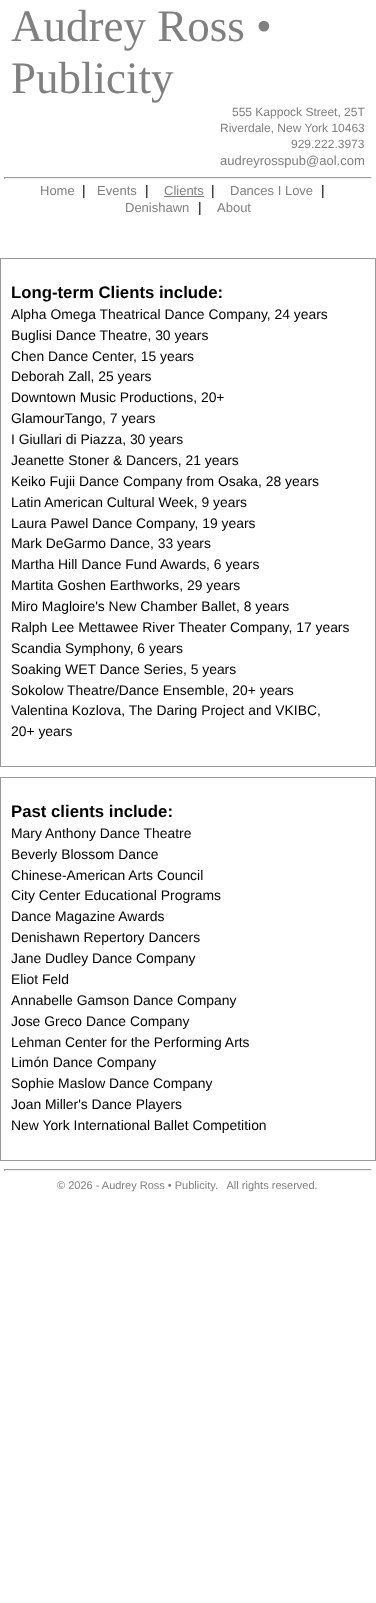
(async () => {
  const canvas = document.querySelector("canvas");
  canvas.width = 376;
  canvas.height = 1603;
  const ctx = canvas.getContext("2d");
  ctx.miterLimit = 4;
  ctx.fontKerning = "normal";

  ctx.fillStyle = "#ffffff";
  ctx.fillRect(0, 0, 376, 1603);
  for (const [x, y, w, h, color] of [
    [4, 177, 368, 1, "#9f9f9f"],
    [371, 177, 1, 2, "#eeeeee"],
    [4, 178, 368, 1, "#eeeeee"],
    [4, 177, 1, 2, "#9f9f9f"],
    [164, 196, 40, 1, "#808080"],
  ]) {
    ctx.fillStyle = color;
    ctx.fillRect(x, y, w, h);
  }
  ctx.strokeStyle = "#999999";
  ctx.strokeRect(0.5, 258.5, 375, 508);
  ctx.strokeRect(0.5, 777.5, 375, 383);
  for (const [x, y, w, h, color] of [
    [4, 1169, 368, 1, "#9f9f9f"],
    [371, 1169, 1, 2, "#eeeeee"],
    [4, 1170, 368, 1, "#eeeeee"],
    [4, 1169, 1, 2, "#9f9f9f"],
  ]) {
    ctx.fillStyle = color;
    ctx.fillRect(x, y, w, h);
  }
  ctx.font = "45px Liberation Serif";
  ctx.fillStyle = "#808080";
  ctx.fillText("Audrey Ross •", 11, 41);
  ctx.fillText("Publicity", 11, 93);
  ctx.font = "12px Liberation Sans";
  for (const [text, x, y] of [
    ["555 Kappock Street, 25T", 232, 116],
    ["Riverdale, New York 10463", 220, 132],
    ["929.222.3973", 291, 148],
  ]) {
    ctx.fillText(text, x, y);
  }
  ctx.font = "13px Liberation Sans";
  ctx.fillText("audreyrosspub@aol.com", 220, 165);
  ctx.fillText("Home", 40, 195);
  ctx.font = "13.9px Liberation Sans";
  ctx.fillStyle = "#000000";
  ctx.fillText("|", 82, 195);
  ctx.font = "13px Liberation Sans";
  ctx.fillStyle = "#808080";
  ctx.fillText("Events", 97, 195);
  ctx.font = "13.9px Liberation Sans";
  ctx.fillStyle = "#000000";
  ctx.fillText("|", 145, 195);
  ctx.font = "13px Liberation Sans";
  ctx.fillStyle = "#808080";
  ctx.fillText("Clients", 164, 195);
  ctx.font = "13.9px Liberation Sans";
  ctx.fillStyle = "#000000";
  ctx.fillText("|", 211, 195);
  ctx.font = "13px Liberation Sans";
  ctx.fillStyle = "#808080";
  ctx.fillText("Dances I Love", 230, 195);
  ctx.font = "13.9px Liberation Sans";
  ctx.fillStyle = "#000000";
  ctx.fillText("|", 321, 195);
  ctx.font = "13px Liberation Sans";
  ctx.fillStyle = "#808080";
  ctx.fillText("Denishawn", 125, 212);
  ctx.font = "13.9px Liberation Sans";
  ctx.fillStyle = "#000000";
  ctx.fillText("|", 198, 212);
  ctx.font = "13px Liberation Sans";
  ctx.fillStyle = "#808080";
  ctx.fillText("About", 217, 212);
  ctx.font = "bold 16.75px Liberation Sans";
  ctx.fillStyle = "#000000";
  ctx.fillText("Long-term Clients include:", 11, 298);
  ctx.font = "13.9px Liberation Sans";
  for (const [text, x, y] of [
    ["Alpha Omega Theatrical Dance Company, 24 years", 11, 319],
    ["Buglisi Dance Theatre, 30 years", 11, 340],
    ["Chen Dance Center, 15 years", 11, 361],
    ["Deborah Zall, 25 years", 11, 381],
    ["Downtown Music Productions, 20+", 11, 402],
    ["GlamourTango, 7 years", 11, 423],
    ["I Giullari di Piazza, 30 years", 11, 444],
    ["Jeanette Stoner & Dancers, 21 years", 11, 465],
    ["Keiko Fujii Dance Company from Osaka, 28 years", 11, 486],
    ["Latin American Cultural Week, 9 years", 11, 507],
    ["Laura Pawel Dance Company, 19 years", 11, 528],
    ["Mark DeGarmo Dance, 33 years", 11, 548],
    ["Martha Hill Dance Fund Awards, 6 years", 11, 569],
    ["Martita Goshen Earthworks, 29 years", 11, 590],
    ["Miro Magloire's New Chamber Ballet, 8 years", 11, 611],
    ["Ralph Lee Mettawee River Theater Company, 17 years", 11, 632],
    ["Scandia Symphony, 6 years", 11, 653],
    ["Soaking WET Dance Series, 5 years", 11, 674],
    ["Sokolow Theatre/Dance Ensemble, 20+ years", 11, 695],
    ["Valentina Kozlova, The Daring Project and VKIBC,", 11, 715],
    ["20+ years", 11, 736],
  ]) {
    ctx.fillText(text, x, y);
  }
  ctx.font = "bold 16.75px Liberation Sans";
  ctx.fillText("Past clients include:", 11, 817);
  ctx.font = "13.9px Liberation Sans";
  for (const [text, x, y] of [
    ["Mary Anthony Dance Theatre", 11, 838],
    ["Beverly Blossom Dance", 11, 859],
    ["Chinese-American Arts Council", 11, 880],
    ["City Center Educational Programs", 11, 900],
    ["Dance Magazine Awards", 11, 921],
    ["Denishawn Repertory Dancers", 11, 942],
    ["Jane Dudley Dance Company", 11, 963],
    ["Eliot Feld", 11, 984],
    ["Annabelle Gamson Dance Company", 11, 1005],
    ["Jose Greco Dance Company", 11, 1026],
    ["Lehman Center for the Performing Arts", 11, 1047],
    ["Limón Dance Company", 11, 1067],
    ["Sophie Maslow Dance Company", 11, 1088],
    ["Joan Miller's Dance Players", 11, 1109],
    ["New York International Ballet Competition", 11, 1130],
  ]) {
    ctx.fillText(text, x, y);
  }
  ctx.font = "11px Liberation Sans";
  ctx.fillStyle = "#808080";
  ctx.fillText("© 2026 - Audrey Ross • Publicity.   All rights reserved.", 57, 1189);
})();
